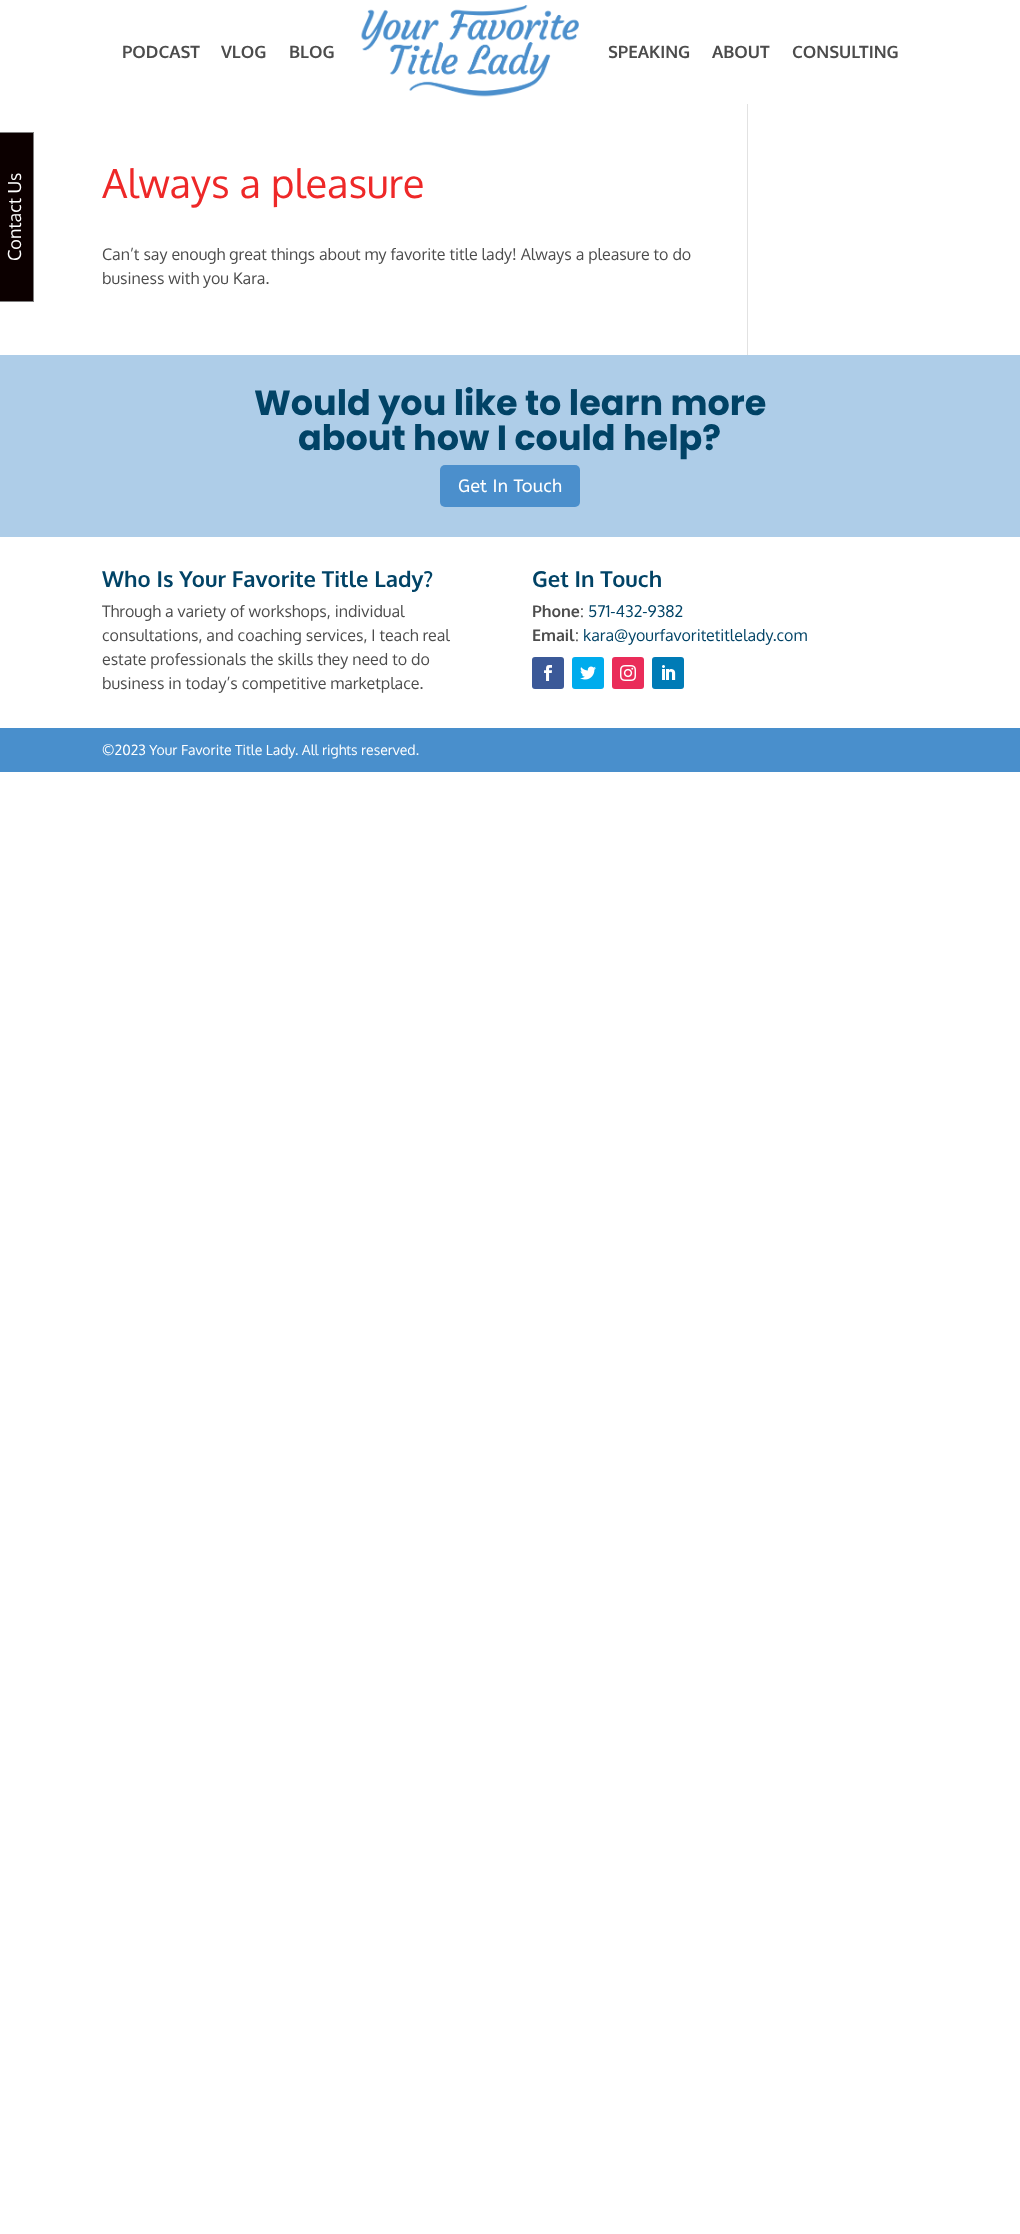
(async () => {
  const canvas = document.querySelector("canvas");
  canvas.width = 1020;
  canvas.height = 2234;
  const ctx = canvas.getContext("2d");
  ctx.miterLimit = 4;
  ctx.fontKerning = "normal";
  async function loadImage(src) {
    const img = new Image();
    img.src = src;
    await img.decode();
    return img;
  }

  ctx.fillStyle = "#ffffff";
  ctx.fillRect(0, 0, 1020, 2234);
  for (const [x, y, w, h, color] of [
    [0, 133, 33, 168, "#0c0000"],
    [0, 132, 34, 1, "#7f7f7f"],
    [33, 132, 1, 170, "#7f7f7f"],
    [0, 301, 34, 1, "#7f7f7f"],
  ]) {
    ctx.fillStyle = color;
    ctx.fillRect(x, y, w, h);
  }
  ctx.drawImage(await loadImage("img/1.png"), 361, 5, 218, 92);
  ctx.fillStyle = "#e2e2e2";
  ctx.fillRect(747, 104, 1, 251);
  ctx.fillStyle = "#aecde8";
  ctx.fillRect(0, 355, 1020, 182);
  ctx.fillStyle = "#4b8fcc";
  ctx.beginPath();
  ctx.roundRect(440, 465, 140, 42, 5);
  ctx.fill();
  ctx.fillStyle = "#3b5998";
  ctx.beginPath();
  ctx.roundRect(532, 657, 32, 32, 3);
  ctx.fill();
  ctx.drawImage(await loadImage("img/2.png"), 544, 665, 8, 16);
  ctx.fillStyle = "#00aced";
  ctx.beginPath();
  ctx.roundRect(572, 657, 32, 32, 3);
  ctx.fill();
  ctx.drawImage(await loadImage("img/3.png"), 580, 666, 16, 14);
  ctx.fillStyle = "#ea2c59";
  ctx.beginPath();
  ctx.roundRect(612, 657, 32, 32, 3);
  ctx.fill();
  ctx.drawImage(await loadImage("img/4.png"), 620, 665, 16, 16);
  ctx.fillStyle = "#007bb6";
  ctx.beginPath();
  ctx.roundRect(652, 657, 32, 32, 3);
  ctx.fill();
  ctx.drawImage(await loadImage("img/5.png"), 662, 665, 14, 15);
  ctx.fillStyle = "#498fcc";
  ctx.fillRect(0, 728, 1020, 44);
  ctx.font = "18px Oxygen";
  ctx.fillStyle = "#ffffff";
  ctx.save();
  ctx.translate(21, 261);
  ctx.rotate(-90 * Math.PI / 180);
  ctx.fillText("Contact Us", 0, 0);
  ctx.restore();
  ctx.font = "bold 17px Oxygen";
  ctx.fillStyle = "#4c4c4c";
  for (const [text, x, y] of [
    ["PODCAST", 122, 58],
    ["VLOG", 221, 58],
    ["BLOG", 289, 58],
    ["SPEAKING", 608, 58],
    ["ABOUT", 712, 58],
    ["CONSULTING", 792, 58],
  ]) {
    ctx.fillText(text, x, y);
  }
  ctx.font = "40px Oxygen";
  ctx.fillStyle = "#ee2828";
  ctx.fillText("Always a pleasure", 102, 198);
  ctx.font = "16px Oxygen";
  ctx.fillStyle = "#4c4c4c";
  ctx.fillText("Can’t say enough great things about my favorite title lady! Always a pleasure to do", 102, 260);
  ctx.fillText("business with you Kara.", 102, 284);
  ctx.font = "bold 35px Poppins";
  ctx.fillStyle = "#014366";
  ctx.fillText("Would you like to learn more", 254, 415);
  ctx.fillText("about how I could help?", 298, 450);
  ctx.font = "18px ABeeZee";
  ctx.fillStyle = "#ffffff";
  ctx.fillText("Get In Touch", 458, 492);
  ctx.font = "bold 22px Oxygen";
  ctx.fillStyle = "#014366";
  ctx.fillText("Who Is Your Favorite Title Lady?", 102, 587);
  ctx.font = "16px Oxygen";
  ctx.fillStyle = "#4c4c4c";
  for (const [text, x, y] of [
    ["Through a variety of workshops, individual", 102, 617],
    ["consultations, and coaching services, I teach real", 102, 641],
    ["estate professionals the skills they need to do", 102, 665],
    ["business in today’s competitive marketplace.", 102, 689],
  ]) {
    ctx.fillText(text, x, y);
  }
  ctx.font = "bold 22px Oxygen";
  ctx.fillStyle = "#014366";
  ctx.fillText("Get In Touch", 532, 587);
  ctx.font = "bold 16px Oxygen";
  ctx.fillStyle = "#4c4c4c";
  ctx.fillText("Phone", 532, 617);
  ctx.font = "16px Oxygen";
  ctx.fillText(":", 580, 617);
  ctx.fillStyle = "#014366";
  ctx.fillText("571-432-9382", 588, 617);
  ctx.font = "bold 16px Oxygen";
  ctx.fillStyle = "#4c4c4c";
  ctx.fillText("Email", 532, 641);
  ctx.font = "16px Oxygen";
  ctx.fillText(":", 575, 641);
  ctx.fillStyle = "#014366";
  ctx.fillText("kara@yourfavoritetitlelady.com", 583, 641);
  ctx.font = "14px Oxygen";
  ctx.fillStyle = "#ffffff";
  ctx.fillText("©2023 Your Favorite Title Lady. All rights reserved.", 102, 755);
})();
